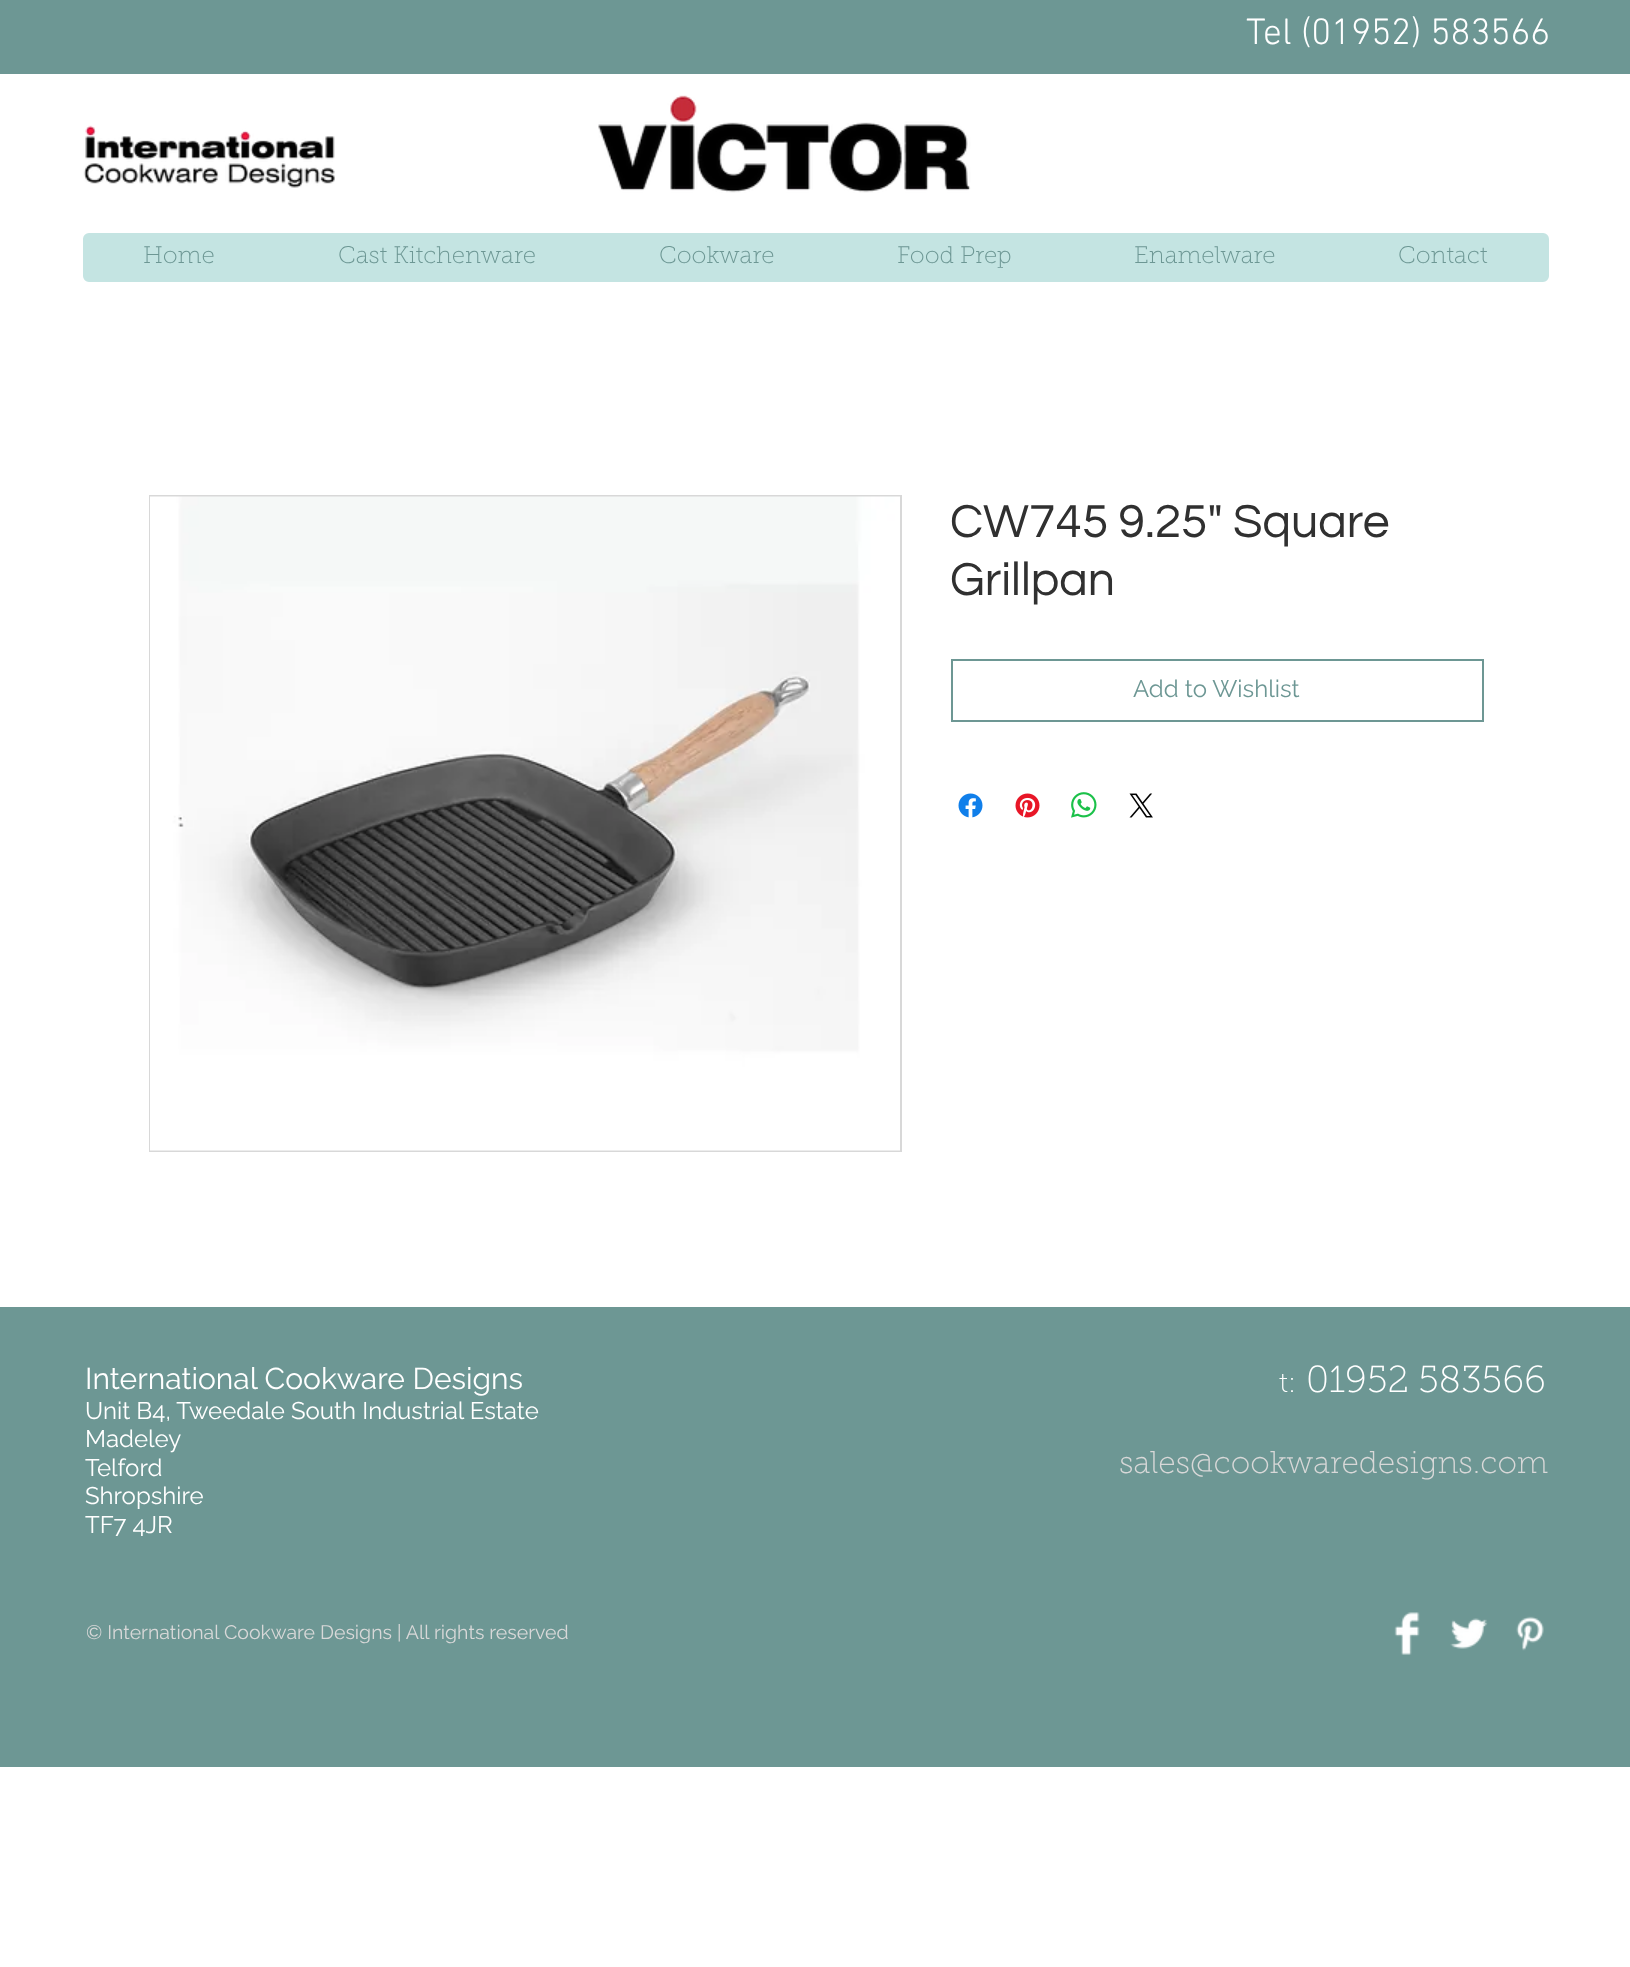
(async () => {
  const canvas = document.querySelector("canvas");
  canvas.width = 1630;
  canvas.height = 1967;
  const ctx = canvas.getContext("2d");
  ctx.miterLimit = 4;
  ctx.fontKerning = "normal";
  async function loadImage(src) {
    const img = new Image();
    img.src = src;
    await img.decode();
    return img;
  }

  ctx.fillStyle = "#ffffff";
  ctx.fillRect(0, 0, 1630, 1967);
  ctx.fillStyle = "#6d9794";
  ctx.fillRect(0, 0, 1630, 74);
  ctx.drawImage(await loadImage("img/1.png"), 83, 125, 252, 63);
  ctx.drawImage(await loadImage("img/2.png"), 598, 95, 373, 98);
  ctx.fillStyle = "#c4e4e2";
  ctx.beginPath();
  ctx.roundRect(82, 232, 1468, 51, 7);
  ctx.fill();
  ctx.strokeStyle = "#ffffff";
  ctx.lineWidth = 2;
  ctx.stroke();
  ctx.strokeStyle = "#d8d8d8";
  ctx.strokeRect(150, 496, 751, 655);
  ctx.drawImage(await loadImage("img/3.png"), 150, 496, 750, 655);
  ctx.strokeStyle = "#6d9794";
  ctx.strokeRect(952, 660, 531, 61);
  ctx.drawImage(await loadImage("img/4.png"), 958, 793, 25, 25);
  ctx.drawImage(await loadImage("img/5.png"), 1015, 793, 25, 25);
  ctx.drawImage(await loadImage("img/6.png"), 1071, 792, 26, 26);
  ctx.drawImage(await loadImage("img/7.png"), 1129, 793, 24, 25);
  ctx.fillStyle = "#6d9794";
  ctx.fillRect(0, 1307, 1630, 460);
  ctx.drawImage(await loadImage("img/8.png"), 1394, 1612, 26, 43);
  ctx.drawImage(await loadImage("img/9.png"), 1450, 1618, 38, 31);
  ctx.drawImage(await loadImage("img/10.png"), 1516, 1616, 28, 35);
  ctx.font = "300 37.5px 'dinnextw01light'";
  ctx.fillStyle = "#ffffff";
  ctx.fillText("Tel (01952) 583566", 1246, 44);
  ctx.font = "100 24px 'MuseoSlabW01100'";
  ctx.fillStyle = "#6d9794";
  for (const [text, x, y] of [
    ["Home", 143, 263],
    ["Cast Kitchenware", 338, 263],
    ["Cookware", 659, 263],
    ["Food Prep", 897, 263],
    ["Enamelware", 1134, 263],
    ["Contact", 1398, 263],
  ]) {
    ctx.fillText(text, x, y);
  }
  ctx.font = "48px Questrial";
  ctx.fillStyle = "#303030";
  ctx.fillText("CW745 9.25\" Square", 950, 537);
  ctx.fillText("Grillpan", 950, 595);
  ctx.font = "24px Raleway";
  ctx.fillStyle = "#6d9794";
  ctx.fillText("Add to Wishlist", 1133, 697);
  ctx.font = "30px Raleway";
  ctx.fillStyle = "#ffffff";
  ctx.fillText("International Cookware Designs", 85, 1389);
  ctx.font = "24px Raleway";
  for (const [text, x, y] of [
    ["Unit B4, Tweedale South Industrial Estate", 85, 1419],
    ["Madeley", 85, 1447],
    ["Telford", 85, 1476],
    ["Shropshire", 85, 1504],
    ["TF7 4JR", 85, 1533],
  ]) {
    ctx.fillText(text, x, y);
  }
  ctx.font = "100 28px 'MuseoSlabW01100'";
  ctx.fillText("t:", 1279, 1392);
  ctx.font = "100 37.5px 'MuseoSlabW01100'";
  ctx.fillText("01952 583566", 1306, 1392);
  ctx.font = "100 31.5px 'MuseoSlabW01100'";
  ctx.fillStyle = "#d8d8d8";
  ctx.fillText("sales@cookwaredesigns.com", 1119, 1473);
  ctx.font = "19.5px Raleway";
  ctx.fillText("© International Cookware Designs | All rights reserved", 86, 1639);
})();
